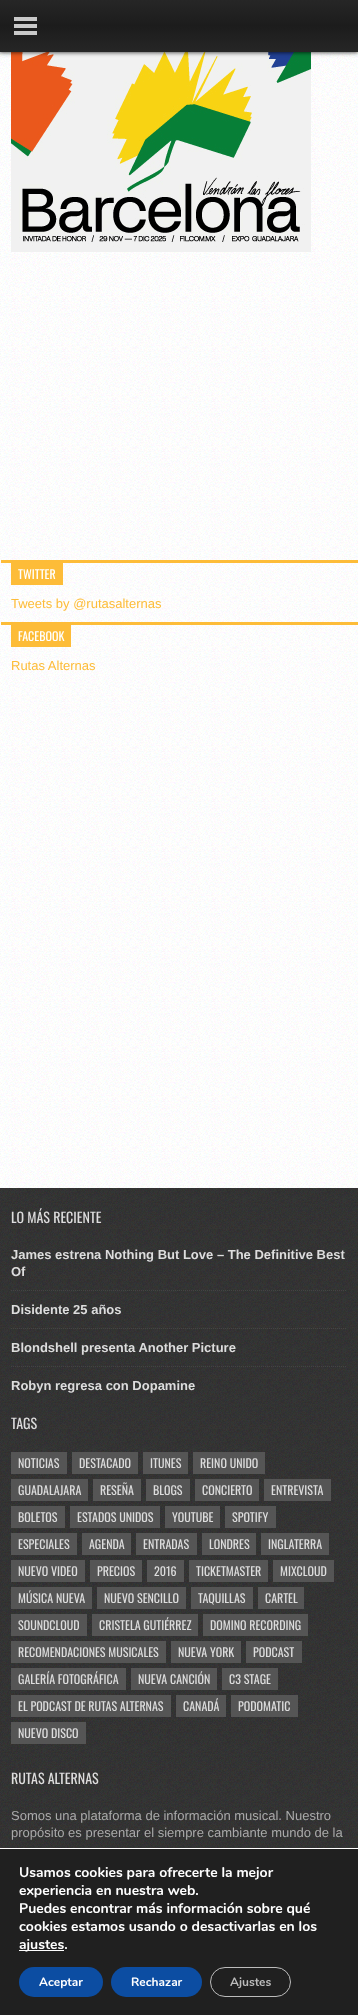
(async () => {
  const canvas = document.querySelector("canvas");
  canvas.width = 358;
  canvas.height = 2015;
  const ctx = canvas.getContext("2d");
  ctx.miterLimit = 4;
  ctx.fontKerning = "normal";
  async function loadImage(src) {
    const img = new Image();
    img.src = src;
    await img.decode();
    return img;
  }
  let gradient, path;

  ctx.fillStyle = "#ffffff";
  ctx.fillRect(0, 0, 358, 2015);
  ctx.drawImage(await loadImage("img/1.png"), 0, 52, 358, 1136);
  ctx.drawImage(await loadImage("img/2.png"), 11, 52, 300, 200);
  ctx.fillStyle = "rgba(0, 0, 0, 0.5)";
  ctx.filter = "blur(2px)";
  ctx.beginPath();
  ctx.rect(-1, 1, 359, 52);
  ctx.fill();
  ctx.filter = "none";
  ctx.fillStyle = "rgba(0, 0, 0, 0.3)";
  ctx.filter = "blur(1.5px)";
  ctx.beginPath();
  ctx.rect(0, 2, 358, 50);
  ctx.fill();
  ctx.filter = "none";
  gradient = ctx.createLinearGradient(179, 0, 179, 52);
  gradient.addColorStop(0, "#262626");
  gradient.addColorStop(0.5, "#1c1c1c");
  gradient.addColorStop(1, "#262626");
  ctx.fillStyle = gradient;
  ctx.fillRect(0, 0, 358, 52);
  for (const [x, y, w, h, color] of [
    [14, 17, 23, 4, "#c9c9c9"],
    [14, 24, 23, 4, "#c9c9c9"],
    [14, 31, 23, 4, "#c9c9c9"],
    [1, 560, 357, 3, "#fdbc38"],
    [11, 563, 52, 22, "#fdbc38"],
    [1, 622, 357, 3, "#fdbc38"],
    [11, 625, 60, 22, "#fdbc38"],
  ]) {
    ctx.fillStyle = color;
    ctx.fillRect(x, y, w, h);
  }
  ctx.drawImage(await loadImage("img/3.png"), 0, 1188, 358, 660);
  path = new Path2D("M11 1290.5H347");
  ctx.strokeStyle = "#444444";
  ctx.setLineDash([1, 1]);
  ctx.stroke(path);
  path = new Path2D("M11 1328.5H347");
  ctx.stroke(path);
  path = new Path2D("M11 1366.5H347");
  ctx.stroke(path);
  for (const [x, y, w, h, color] of [
    [11, 1452, 56, 22, "#555555"],
    [72, 1452, 66, 22, "#555555"],
    [143, 1452, 45, 22, "#555555"],
    [193, 1452, 72, 22, "#555555"],
    [11, 1479, 77, 22, "#555555"],
    [93, 1479, 48, 22, "#555555"],
    [146, 1479, 44, 22, "#555555"],
    [195, 1479, 64, 22, "#555555"],
    [264, 1479, 67, 22, "#555555"],
    [11, 1506, 54, 22, "#555555"],
    [70, 1506, 90, 22, "#555555"],
    [165, 1506, 55, 22, "#555555"],
    [225, 1506, 51, 22, "#555555"],
    [11, 1533, 66, 22, "#555555"],
    [82, 1533, 49, 22, "#555555"],
    [136, 1533, 61, 22, "#555555"],
    [202, 1533, 54, 22, "#555555"],
    [261, 1533, 68, 22, "#555555"],
    [11, 1560, 74, 22, "#555555"],
    [90, 1560, 52, 22, "#555555"],
    [147, 1560, 37, 22, "#555555"],
    [189, 1560, 79, 22, "#555555"],
    [273, 1560, 61, 22, "#555555"],
    [11, 1587, 81, 22, "#555555"],
    [97, 1587, 89, 22, "#555555"],
    [191, 1587, 62, 22, "#555555"],
    [258, 1587, 46, 22, "#555555"],
    [11, 1614, 76, 22, "#555555"],
    [92, 1614, 106, 22, "#555555"],
    [203, 1614, 105, 22, "#555555"],
    [11, 1641, 155, 22, "#555555"],
    [171, 1641, 70, 22, "#555555"],
    [246, 1641, 56, 22, "#555555"],
    [11, 1668, 115, 22, "#555555"],
    [131, 1668, 86, 22, "#555555"],
    [222, 1668, 56, 22, "#555555"],
    [11, 1695, 160, 22, "#555555"],
    [176, 1695, 50, 22, "#555555"],
    [231, 1695, 67, 22, "#555555"],
    [11, 1722, 75, 22, "#555555"],
    [0, 1849, 358, 166, "#202020"],
    [19, 1950, 45, 1, "#ffffff"],
  ]) {
    ctx.fillStyle = color;
    ctx.fillRect(x, y, w, h);
  }
  ctx.fillStyle = "#0c4da2";
  ctx.beginPath();
  ctx.roundRect(19, 1967, 84, 30, 15);
  ctx.fill();
  ctx.beginPath();
  ctx.roundRect(111, 1967, 91, 30, 15);
  ctx.fill();
  ctx.beginPath();
  ctx.roundRect(210.5, 1967.5, 80, 29, 14.5);
  ctx.strokeStyle = "#bcbcbc";
  ctx.setLineDash([]);
  ctx.stroke();
  ctx.font = "12px Oswald";
  ctx.fillStyle = "#ffffff";
  ctx.fillText("TWITTER", 18, 579);
  ctx.font = "13px Liberation Sans";
  ctx.fillStyle = "#fdbc38";
  ctx.fillText("Tweets by @rutasalternas", 11, 608);
  ctx.font = "12px Oswald";
  ctx.fillStyle = "#ffffff";
  ctx.fillText("FACEBOOK", 18, 641);
  ctx.font = "13px Liberation Sans";
  ctx.fillStyle = "#fdbc38";
  ctx.fillText("Rutas Alternas", 11, 670);
  ctx.font = "14px Oswald";
  ctx.fillStyle = "#dddddd";
  ctx.fillText("LO MÁS RECIENTE", 11, 1223);
  ctx.font = "bold 13px Liberation Sans";
  for (const [text, x, y] of [
    ["James estrena Nothing But Love – The Definitive Best", 11, 1259],
    ["Of", 11, 1276],
    ["Disidente 25 años", 11, 1314],
    ["Blondshell presenta Another Picture", 11, 1352],
    ["Robyn regresa con Dopamine", 11, 1390],
  ]) {
    ctx.fillText(text, x, y);
  }
  ctx.font = "14px Oswald";
  ctx.fillText("TAGS", 11, 1429);
  ctx.font = "12px Oswald";
  for (const [text, x, y] of [
    ["NOTICIAS", 18, 1468],
    ["DESTACADO", 79, 1468],
    ["ITUNES", 150, 1468],
    ["REINO UNIDO", 200, 1468],
    ["GUADALAJARA", 18, 1495],
    ["RESEÑA", 100, 1495],
    ["BLOGS", 153, 1495],
    ["CONCIERTO", 202, 1495],
    ["ENTREVISTA", 271, 1495],
    ["BOLETOS", 18, 1522],
    ["ESTADOS UNIDOS", 77, 1522],
    ["YOUTUBE", 172, 1522],
    ["SPOTIFY", 232, 1522],
    ["ESPECIALES", 18, 1549],
    ["AGENDA", 89, 1549],
    ["ENTRADAS", 143, 1549],
    ["LONDRES", 209, 1549],
    ["INGLATERRA", 268, 1549],
    ["NUEVO VIDEO", 18, 1576],
    ["PRECIOS", 97, 1576],
    ["2016", 154, 1576],
    ["TICKETMASTER", 196, 1576],
    ["MIXCLOUD", 280, 1576],
    ["MÚSICA NUEVA", 18, 1603],
    ["NUEVO SENCILLO", 104, 1603],
    ["TAQUILLAS", 198, 1603],
    ["CARTEL", 265, 1603],
    ["SOUNDCLOUD", 18, 1630],
    ["CRISTELA GUTIÉRREZ", 99, 1630],
    ["DOMINO RECORDING", 210, 1630],
    ["RECOMENDACIONES MUSICALES", 18, 1657],
    ["NUEVA YORK", 178, 1657],
    ["PODCAST", 253, 1657],
    ["GALERÍA FOTOGRÁFICA", 18, 1684],
    ["NUEVA CANCIÓN", 138, 1684],
    ["C3 STAGE", 229, 1684],
    ["EL PODCAST DE RUTAS ALTERNAS", 18, 1711],
    ["CANADÁ", 183, 1711],
    ["PODOMATIC", 238, 1711],
    ["NUEVO DISCO", 18, 1738],
  ]) {
    ctx.fillText(text, x, y);
  }
  ctx.font = "14px Oswald";
  ctx.fillText("RUTAS ALTERNAS", 11, 1784);
  ctx.font = "13px Liberation Sans";
  ctx.fillStyle = "#aaaaaa";
  ctx.fillText("Somos una plataforma de información musical. Nuestro", 11, 1820);
  ctx.fillText("propósito es presentar el siempre cambiante mundo de la", 11, 1837);
  ctx.font = "bold 14px Nunito";
  ctx.fillStyle = "#ffffff";
  for (const [text, x, y] of [
    ["Usamos cookies para ofrecerte la mejor", 19, 1877],
    ["experiencia en nuestra web.", 19, 1895],
    ["Puedes encontrar más información sobre qué", 19, 1913],
    ["cookies estamos usando o desactivarlas en los", 19, 1931],
    ["ajustes.", 19, 1949],
  ]) {
    ctx.fillText(text, x, y);
  }
  ctx.font = "bold 12px Nunito";
  ctx.fillText("Aceptar", 39, 1986);
  ctx.fillText("Rechazar", 131, 1986);
  ctx.fillStyle = "#bcbcbc";
  ctx.fillText("Ajustes", 230, 1986);
})();
